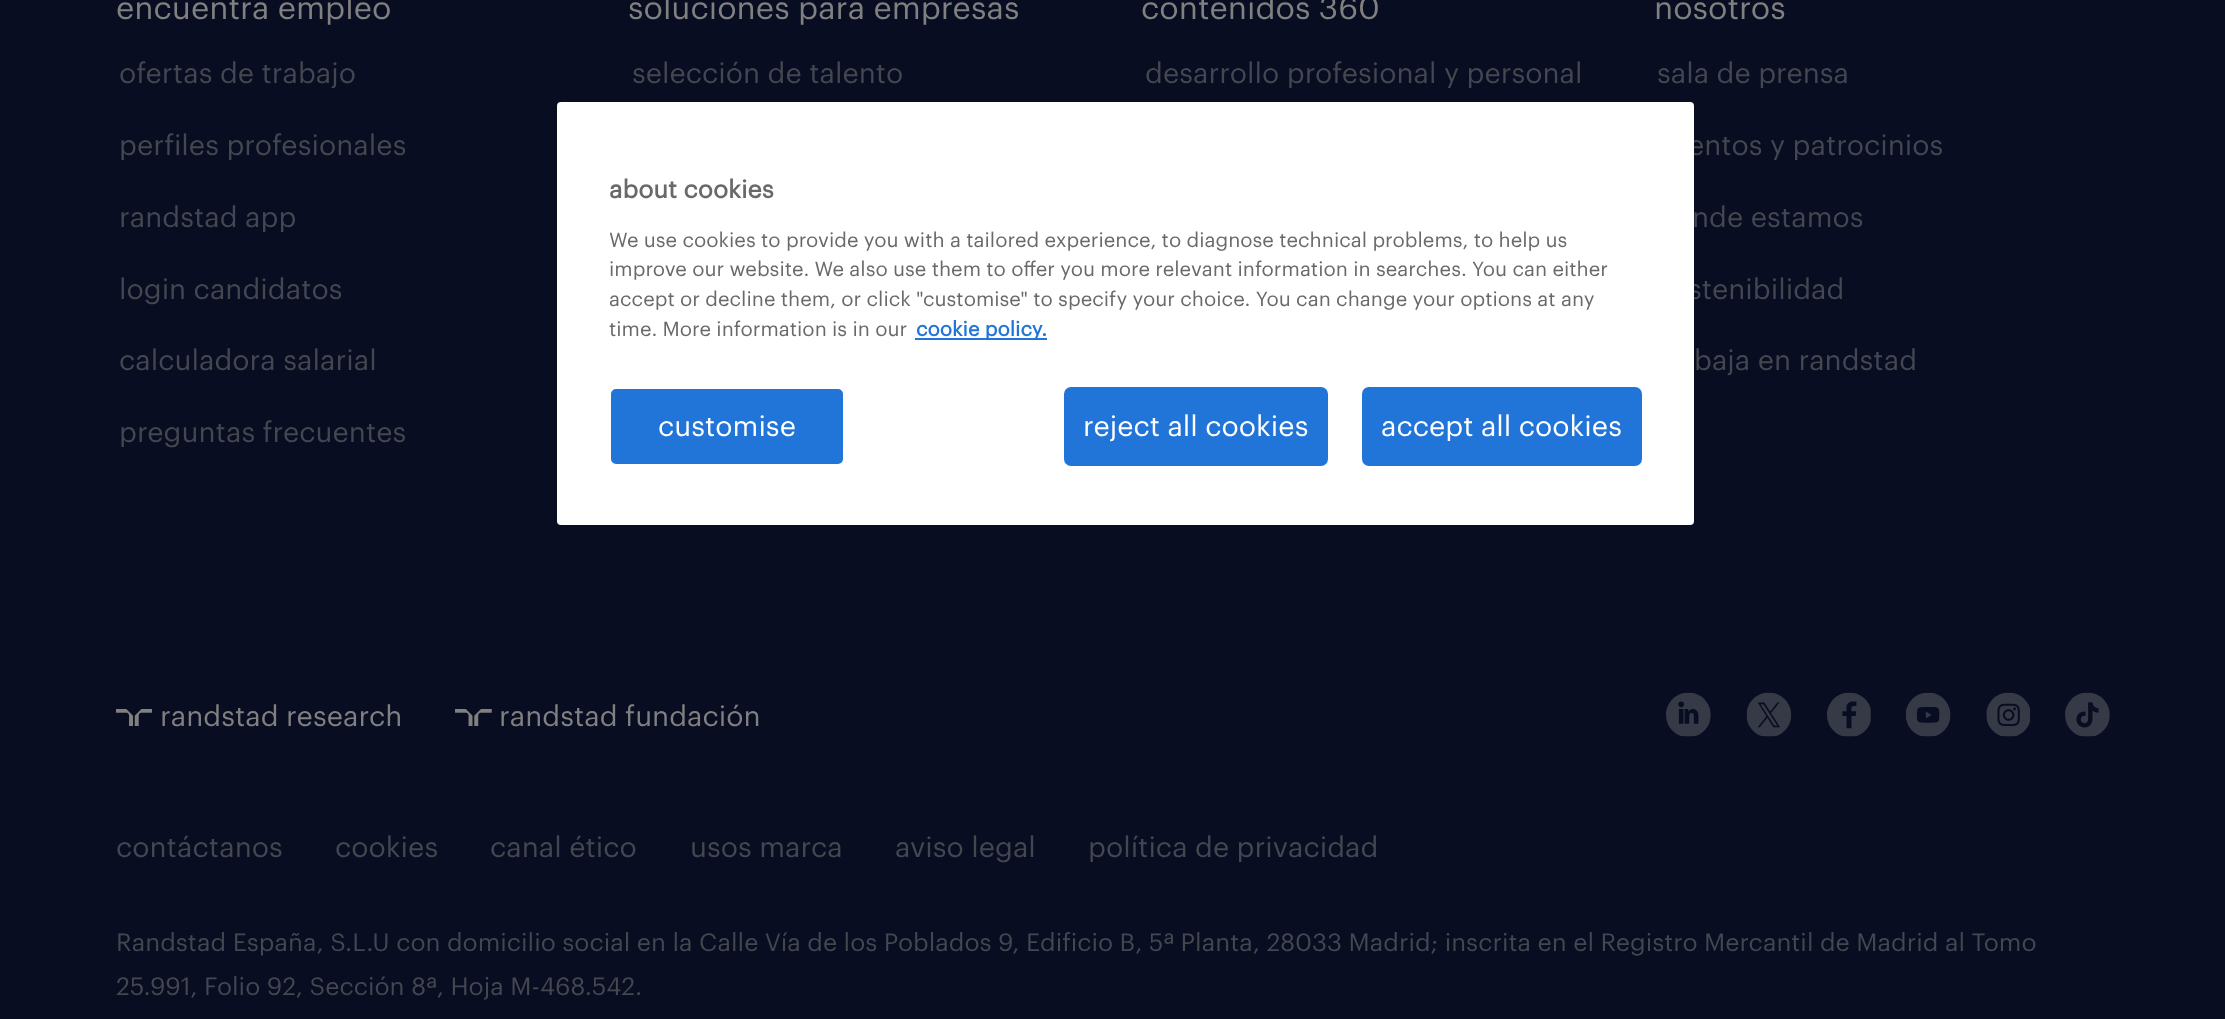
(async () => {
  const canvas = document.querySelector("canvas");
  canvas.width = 2225;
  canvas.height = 1019;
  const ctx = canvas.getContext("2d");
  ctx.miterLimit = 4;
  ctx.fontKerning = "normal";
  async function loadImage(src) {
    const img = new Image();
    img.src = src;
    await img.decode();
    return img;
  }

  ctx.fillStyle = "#080d21";
  ctx.fillRect(0, 0, 2225, 1019);
  ctx.drawImage(await loadImage("img/1.png"), 116, 709, 36, 17);
  ctx.drawImage(await loadImage("img/2.png"), 455, 709, 37, 17);
  ctx.drawImage(await loadImage("img/3.png"), 1666, 692, 45, 45);
  ctx.drawImage(await loadImage("img/4.png"), 1746, 692, 46, 45);
  ctx.drawImage(await loadImage("img/5.png"), 1827, 692, 44, 45);
  ctx.drawImage(await loadImage("img/6.png"), 1906, 692, 45, 45);
  ctx.drawImage(await loadImage("img/7.png"), 1986, 692, 44, 45);
  ctx.drawImage(await loadImage("img/8.png"), 2065, 692, 45, 45);
  ctx.font = "31.5px Graphik";
  ctx.fillStyle = "#808080";
  ctx.fillText("encuentra empleo", 116, 19);
  ctx.font = "28px Graphik";
  ctx.fillStyle = "#444650";
  for (const [text, x, y] of [
    ["ofertas de trabajo", 119, 83],
    ["perfiles profesionales", 119, 155],
    ["randstad app", 119, 227],
    ["login candidatos", 119, 299],
    ["calculadora salarial", 119, 370],
    ["preguntas frecuentes", 119, 442],
  ]) {
    ctx.fillText(text, x, y);
  }
  ctx.font = "31.5px Graphik";
  ctx.fillStyle = "#808080";
  ctx.fillText("soluciones para empresas", 628, 19);
  ctx.font = "28px Graphik";
  ctx.fillStyle = "#444650";
  ctx.fillText("selección de talento", 632, 83);
  ctx.font = "31.5px Graphik";
  ctx.fillStyle = "#808080";
  ctx.fillText("contenidos 360", 1141, 19);
  ctx.font = "28px Graphik";
  ctx.fillStyle = "#444650";
  ctx.fillText("desarrollo profesional y personal", 1145, 83);
  ctx.font = "31.5px Graphik";
  ctx.fillStyle = "#808080";
  ctx.fillText("nosotros", 1654, 19);
  ctx.font = "28px Graphik";
  ctx.fillStyle = "#444650";
  for (const [text, x, y] of [
    ["sala de prensa", 1657, 83],
    ["entos y patrocinios", 1688, 155],
    ["nde estamos", 1692, 227],
    ["stenibilidad", 1688, 299],
    ["baja en randstad", 1694, 370],
  ]) {
    ctx.fillText(text, x, y);
  }
  ctx.fillStyle = "#808080";
  ctx.fillText("randstad research", 160, 726);
  ctx.fillText("randstad fundación", 499, 726);
  ctx.fillStyle = "#444650";
  for (const [text, x, y] of [
    ["contáctanos", 116, 857],
    ["cookies", 335, 857],
    ["canal ético", 490, 857],
    ["usos marca", 690, 857],
    ["aviso legal", 895, 857],
    ["política de privacidad", 1088, 857],
  ]) {
    ctx.fillText(text, x, y);
  }
  ctx.font = "24.5px Graphik";
  ctx.fillText("Randstad España, S.L.U con domicilio social en la Calle Vía de los Poblados 9, Edificio B, 5ª Planta, 28033 Madrid; inscrita en el Registro Mercantil de Madrid al Tomo", 116, 951);
  ctx.fillText("25.991, Folio 92, Sección 8ª, Hoja M-468.542.", 116, 995);
  ctx.fillStyle = "#ffffff";
  ctx.beginPath();
  ctx.roundRect(557, 102, 1137, 423, 4);
  ctx.fill();
  ctx.font = "bold 24.5px Graphik";
  ctx.fillStyle = "#696969";
  ctx.fillText("about cookies", 609, 198);
  ctx.font = "19.92px Graphik";
  for (const [text, x, y] of [
    ["We use cookies to provide you with a tailored experience, to diagnose technical problems, to help us", 609, 247],
    ["improve our website. We also use them to offer you more relevant information in searches. You can either", 609, 276],
    ["accept or decline them, or click \"customise\" to specify your choice. You can change your options at any", 609, 306],
    ["time. More information is in our", 609, 336],
  ]) {
    ctx.fillText(text, x, y);
  }
  ctx.fillStyle = "#2175d9";
  ctx.fillRect(915, 338, 132, 2);
  ctx.font = "bold 19.92px Graphik";
  ctx.fillText("cookie policy.", 916, 336);
  ctx.beginPath();
  ctx.roundRect(610, 388, 234, 77, 6);
  ctx.fill();
  ctx.strokeStyle = "#ffffff";
  ctx.lineWidth = 2;
  ctx.stroke();
  ctx.font = "28px Graphik";
  ctx.fillStyle = "#ffffff";
  ctx.fillText("customise", 658, 436);
  ctx.fillStyle = "#2175d9";
  ctx.beginPath();
  ctx.roundRect(1065, 388, 262, 77, 6);
  ctx.fill();
  ctx.strokeStyle = "#2175d9";
  ctx.stroke();
  ctx.fillStyle = "#ffffff";
  ctx.fillText("reject all cookies", 1083, 436);
  ctx.fillStyle = "#2175d9";
  ctx.beginPath();
  ctx.roundRect(1363, 388, 278, 77, 6);
  ctx.fill();
  ctx.stroke();
  ctx.fillStyle = "#ffffff";
  ctx.fillText("accept all cookies", 1381, 436);
})();
